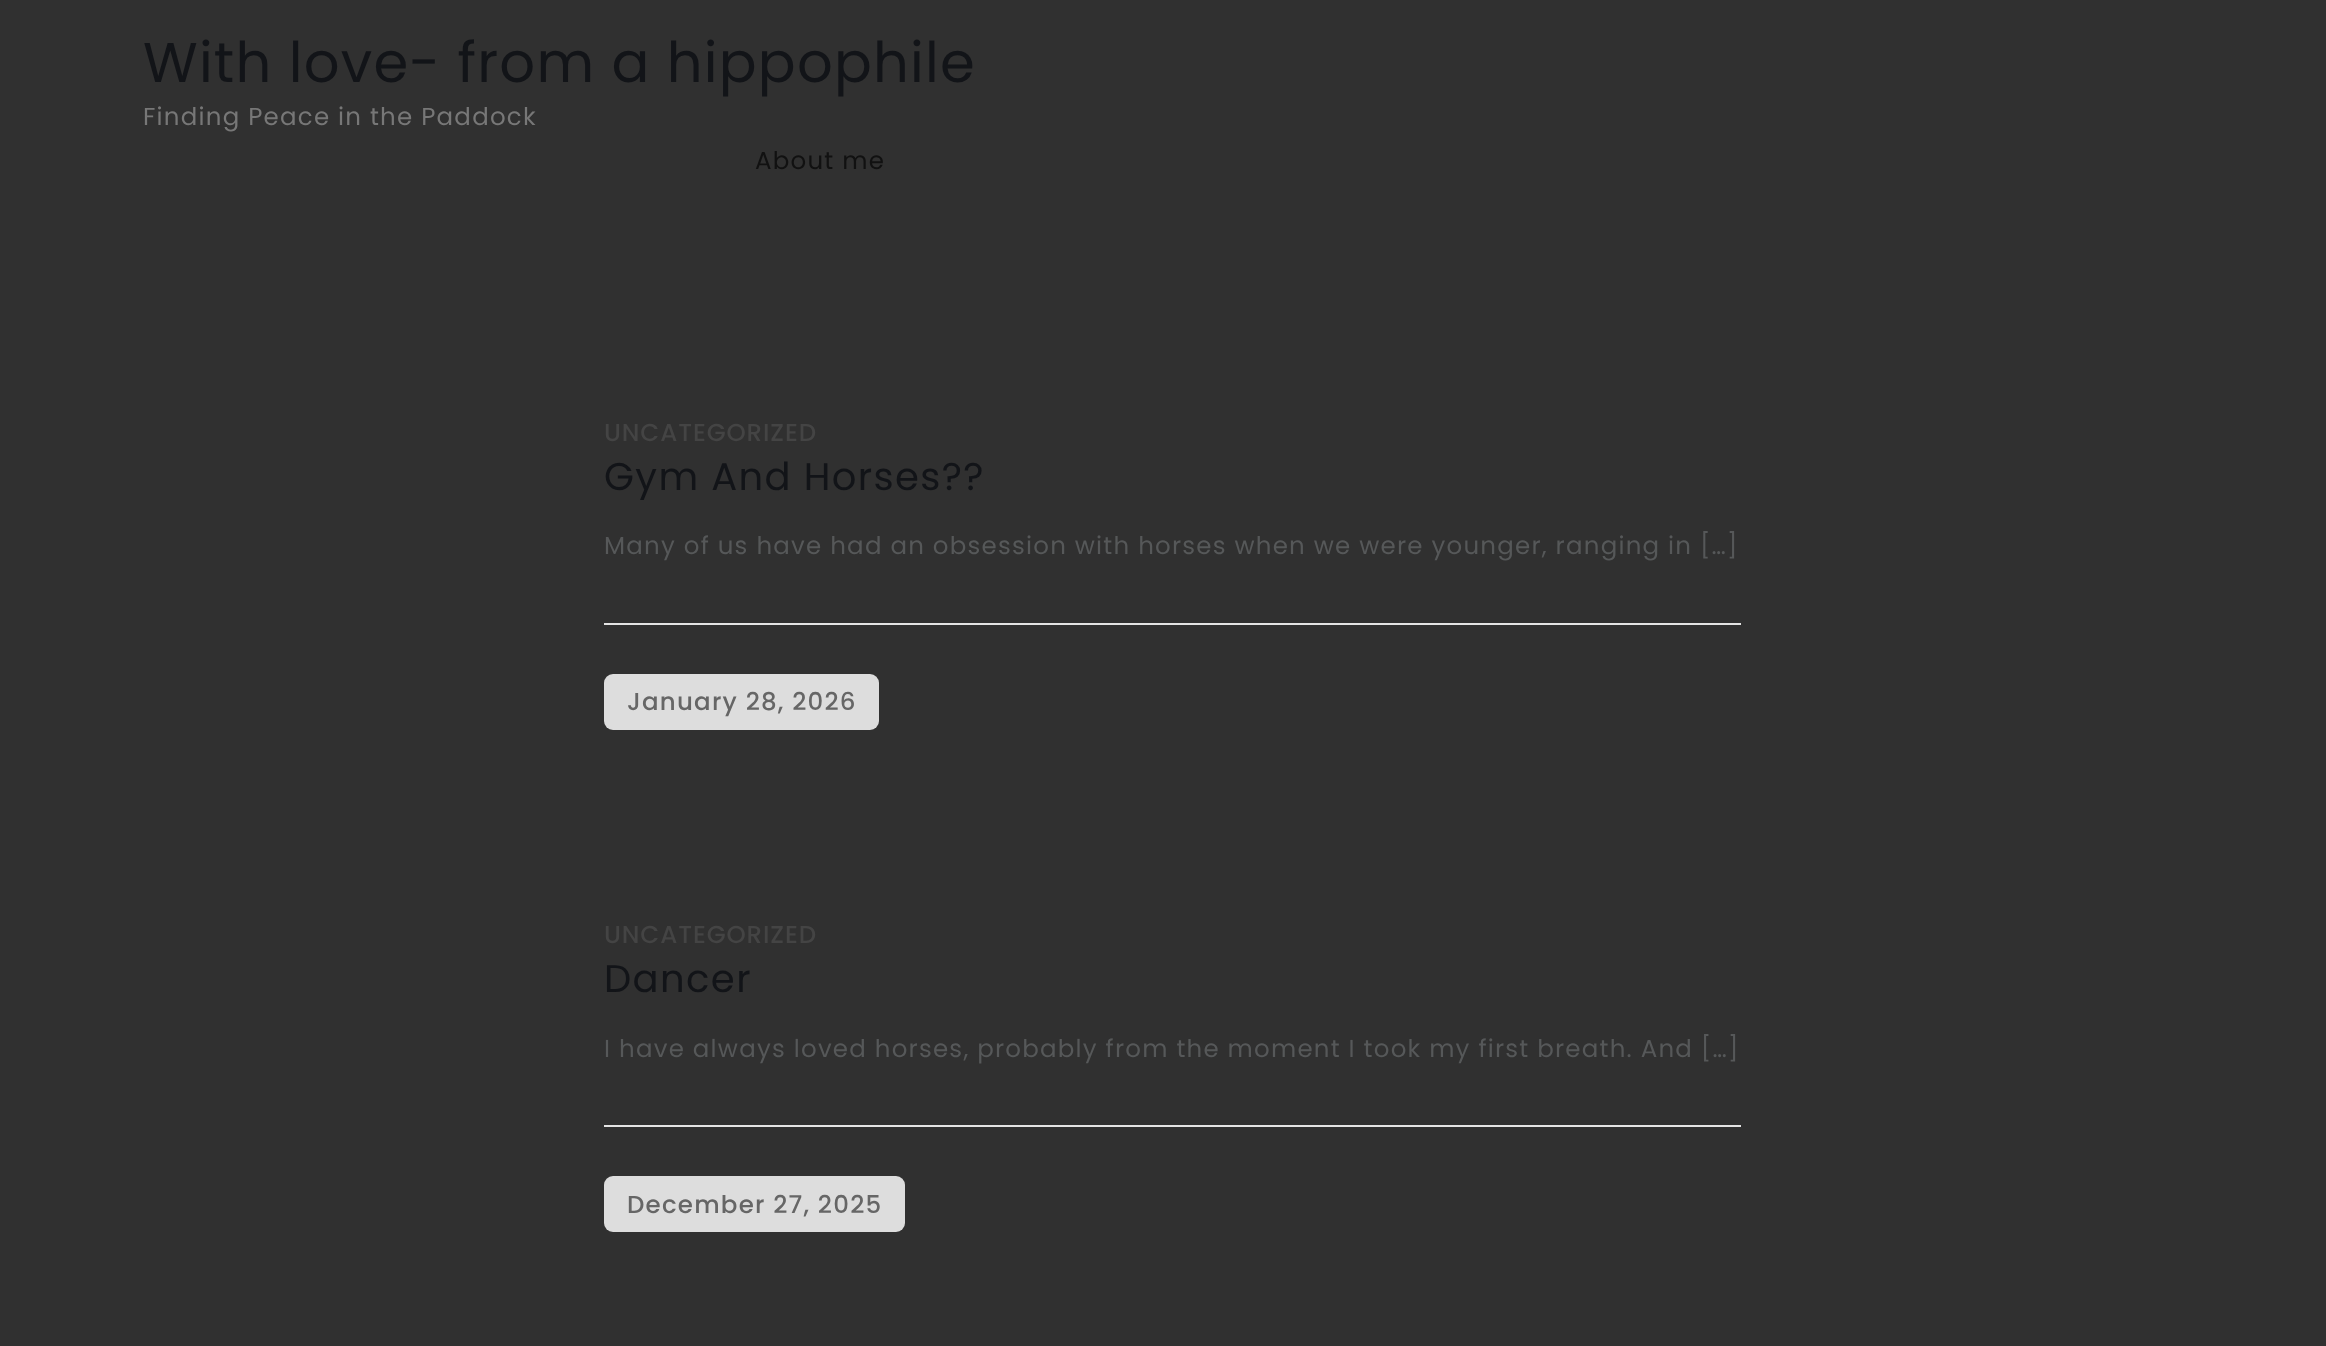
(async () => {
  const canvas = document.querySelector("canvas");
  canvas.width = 2326;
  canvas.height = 1346;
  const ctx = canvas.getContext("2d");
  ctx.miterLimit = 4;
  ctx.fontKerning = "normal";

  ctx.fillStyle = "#303030";
  ctx.fillRect(0, 0, 2326, 1346);
  ctx.fillStyle = "#e4e4e4";
  ctx.fillRect(604, 623, 1137, 2);
  ctx.fillStyle = "#dddddd";
  ctx.beginPath();
  ctx.roundRect(604, 674, 275, 56, 9);
  ctx.fill();
  ctx.fillStyle = "#e4e4e4";
  ctx.fillRect(604, 1125, 1137, 2);
  ctx.fillStyle = "#dddddd";
  ctx.beginPath();
  ctx.roundRect(604, 1176, 301, 56, 9);
  ctx.fill();
  ctx.letterSpacing = "1.22px";
  ctx.font = "56px Poppins";
  ctx.fillStyle = "#121418";
  ctx.fillText("With love- from a hippophile", 143, 82);
  ctx.font = "24.5px Poppins";
  ctx.fillStyle = "#777777";
  ctx.fillText("Finding Peace in the Paddock", 143, 125);
  ctx.fillStyle = "#111111";
  ctx.fillText("About me", 755, 169);
  ctx.letterSpacing = "0.9px";
  ctx.font = "500 24.5px Poppins";
  ctx.fillStyle = "#444444";
  ctx.fillText("UNCATEGORIZED", 604, 441);
  ctx.letterSpacing = "1.4px";
  ctx.font = "38.5px Poppins";
  ctx.fillStyle = "#121418";
  ctx.fillText("Gym And Horses??", 604, 490);
  ctx.letterSpacing = "1.22px";
  ctx.font = "24.5px Poppins";
  ctx.fillStyle = "#565859";
  ctx.fillText("Many of us have had an obsession with horses when we were younger, ranging in […]", 604, 554);
  ctx.font = "500 24.5px Poppins";
  ctx.fillStyle = "#666666";
  ctx.fillText("January 28, 2026", 627, 710);
  ctx.letterSpacing = "0.9px";
  ctx.fillStyle = "#444444";
  ctx.fillText("UNCATEGORIZED", 604, 943);
  ctx.letterSpacing = "1.4px";
  ctx.font = "38.5px Poppins";
  ctx.fillStyle = "#121418";
  ctx.fillText("Dancer", 604, 992);
  ctx.letterSpacing = "1.22px";
  ctx.font = "24.5px Poppins";
  ctx.fillStyle = "#565859";
  ctx.fillText("I have always loved horses, probably from the moment I took my first breath. And […]", 604, 1057);
  ctx.font = "500 24.5px Poppins";
  ctx.fillStyle = "#666666";
  ctx.fillText("December 27, 2025", 627, 1213);
})();
